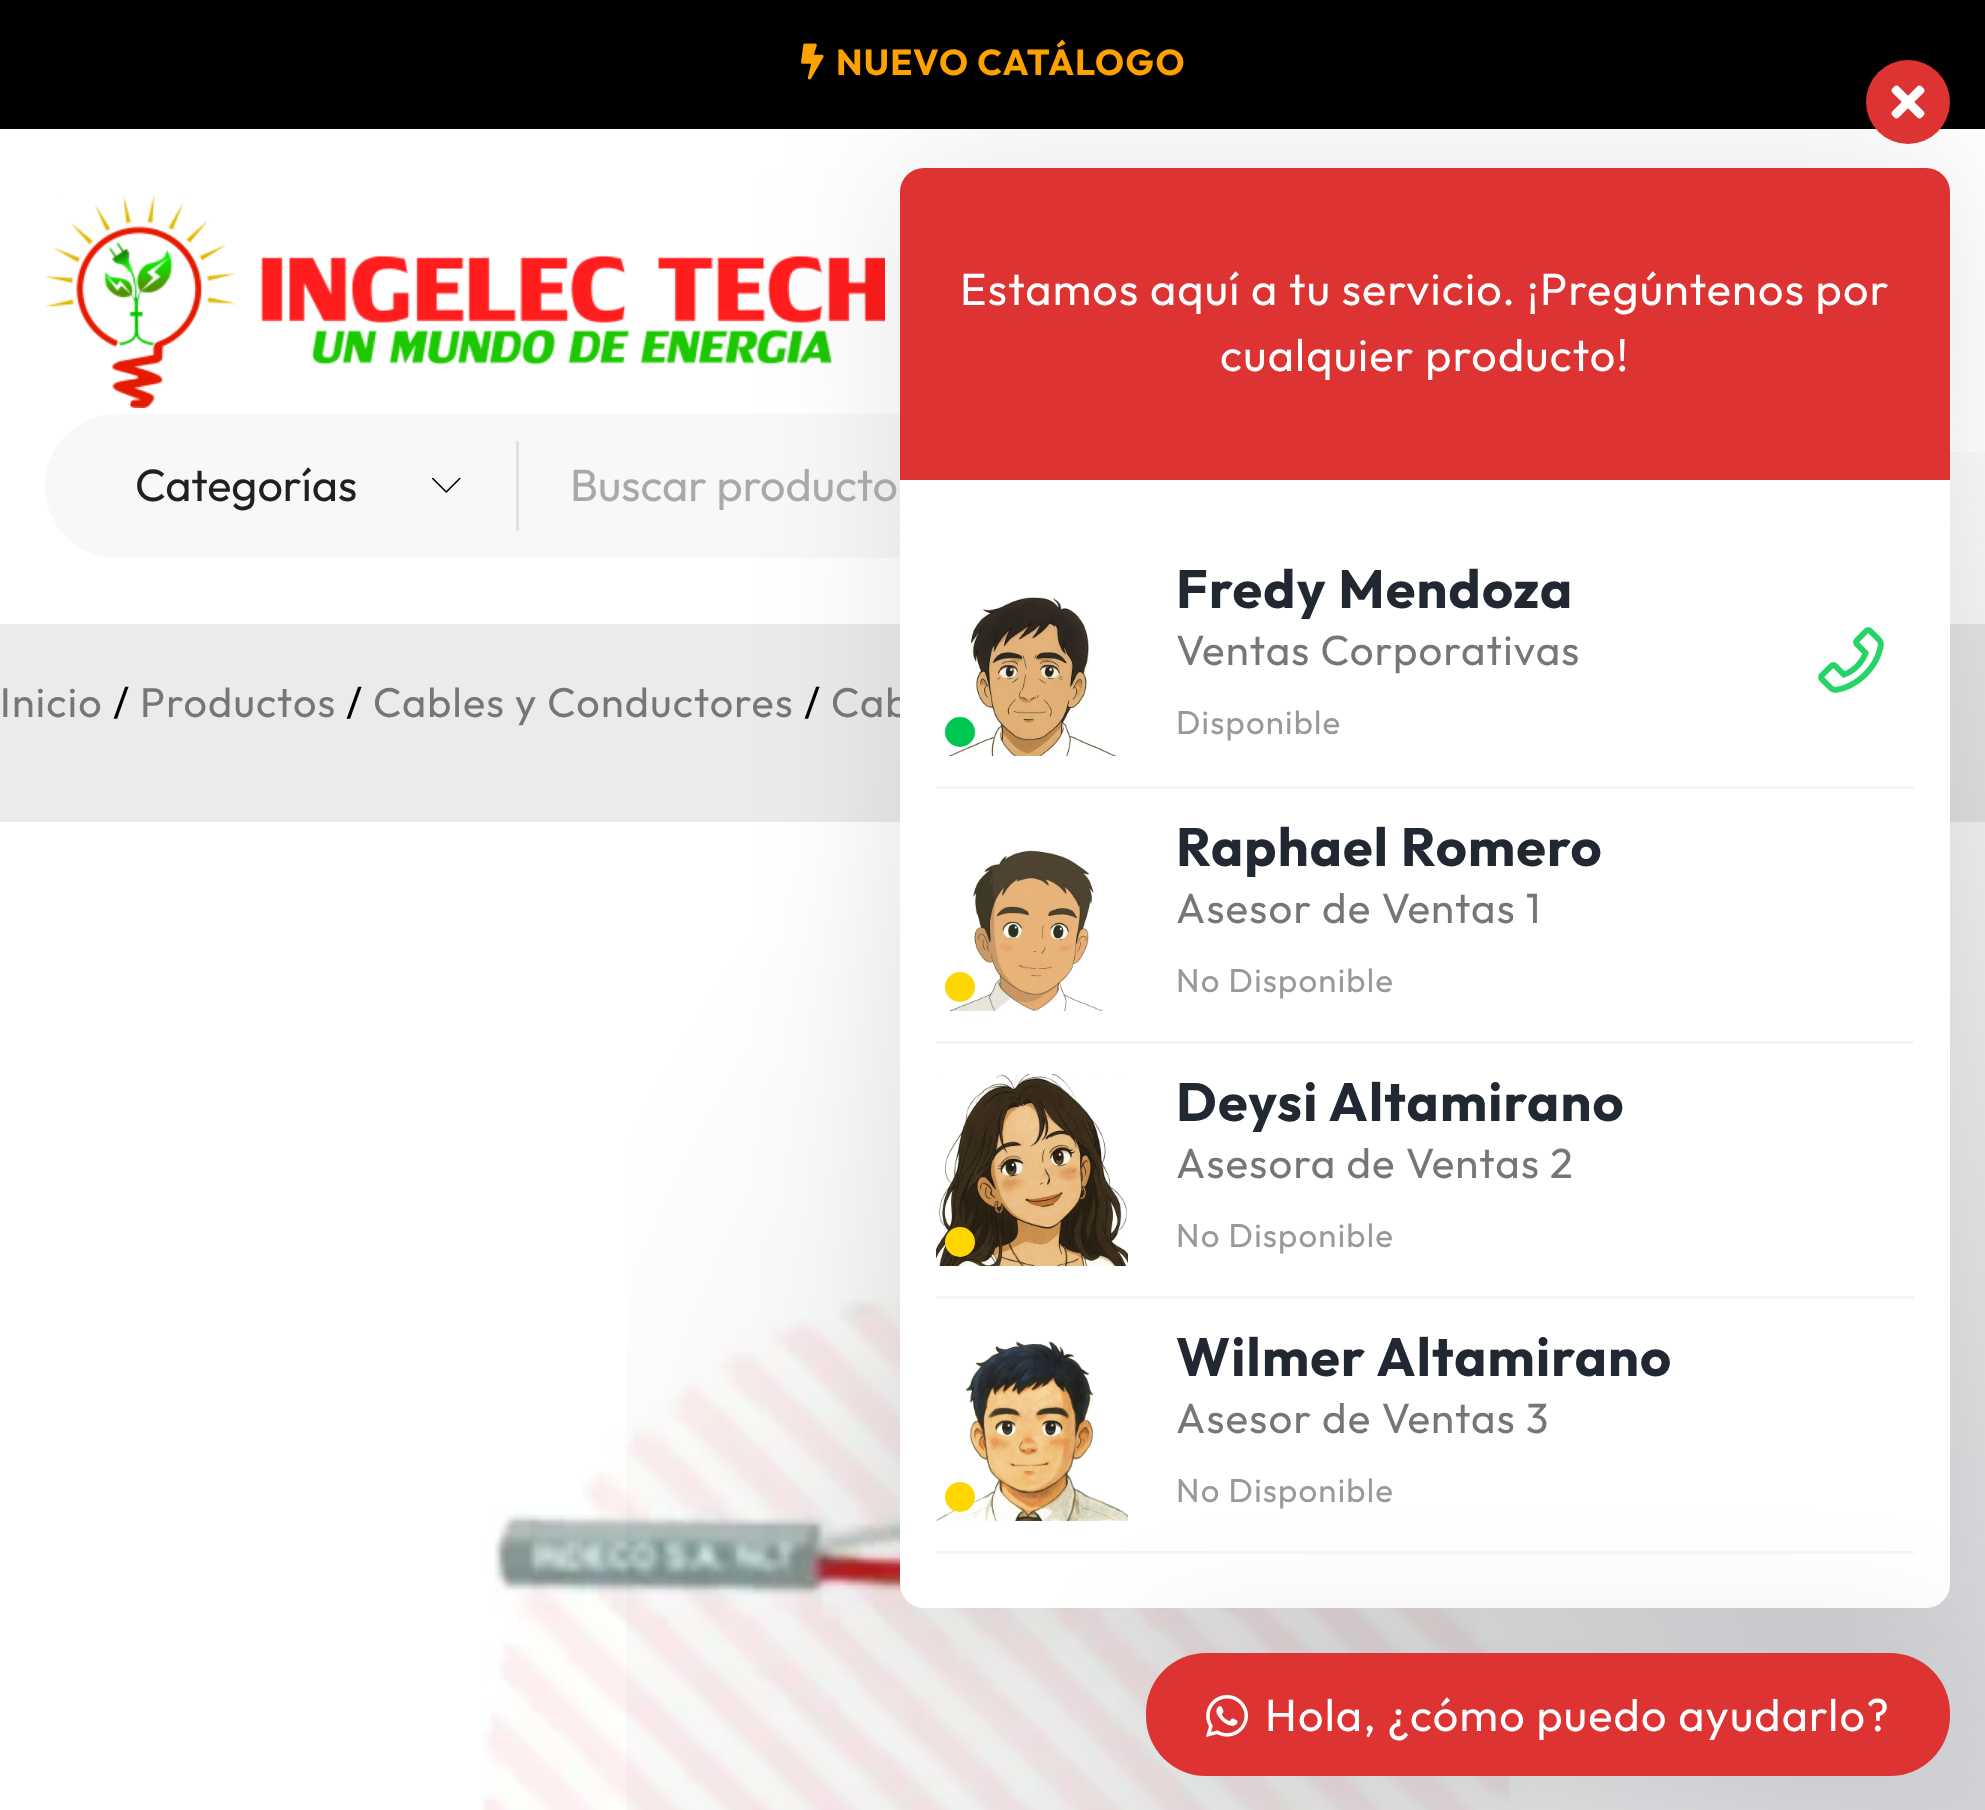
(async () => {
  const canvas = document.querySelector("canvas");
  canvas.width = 1985;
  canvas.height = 1810;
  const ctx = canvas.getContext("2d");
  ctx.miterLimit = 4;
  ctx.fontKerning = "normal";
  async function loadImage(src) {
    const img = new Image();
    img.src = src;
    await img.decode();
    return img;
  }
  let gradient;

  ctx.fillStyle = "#ffffff";
  ctx.fillRect(0, 0, 1985, 1810);
  ctx.fillStyle = "#000000";
  ctx.fillRect(0, 0, 1985, 129);
  ctx.drawImage(await loadImage("img/1.png"), 801, 43, 23, 37);
  ctx.drawImage(await loadImage("img/2.png"), 45, 195, 840, 213);
  ctx.fillStyle = "#f8f8f8";
  ctx.beginPath();
  ctx.roundRect(45, 414, 1896, 144, 72);
  ctx.fill();
  ctx.drawImage(await loadImage("img/3.png"), 432, 477, 29, 16);
  ctx.fillStyle = "#e5e0e0";
  ctx.fillRect(516, 441, 3, 90);
  ctx.fillStyle = "#ebebeb";
  ctx.fillRect(0, 624, 1985, 198);
  ctx.drawImage(await loadImage("img/4.png"), 481, 957, 1445, 853);
  gradient = ctx.createRadialGradient(1986, 1812, 0, 1986, 1812, 2121);
  gradient.addColorStop(0, "rgba(29, 39, 54, 0.2)");
  gradient.addColorStop(0.72, "rgba(29, 39, 54, 0)");
  ctx.fillStyle = gradient;
  ctx.fillRect(626, 452, 1359, 1358);
  ctx.fillStyle = "rgba(0, 0, 0, 0.1)";
  ctx.filter = "blur(75px)";
  ctx.beginPath();
  ctx.roundRect(900, 168, 1050, 312, 24);
  ctx.fill();
  ctx.filter = "none";
  ctx.fillStyle = "#dd3333";
  ctx.beginPath();
  ctx.arc(1908, 102, 42, 0, Math.PI * 2);
  ctx.fill();
  ctx.drawImage(await loadImage("img/5.png"), 1891, 85, 34, 34);
  ctx.fillStyle = "rgba(0, 0, 0, 0.1)";
  ctx.filter = "blur(75px)";
  ctx.beginPath();
  ctx.roundRect(900, 480, 1050, 1128, 24);
  ctx.fill();
  ctx.filter = "none";
  ctx.fillStyle = "#dd3333";
  ctx.beginPath();
  ctx.roundRect(900, 168, 1050, 312, [24, 24, 0, 0]);
  ctx.fill();
  ctx.letterSpacing = "1.2px";
  ctx.font = "bold 36px Outfit";
  ctx.fillStyle = "#fda100";
  ctx.fillText("NUEVO CATÁLOGO", 836, 75);
  ctx.letterSpacing = "0px";
  ctx.font = "45px Outfit";
  ctx.fillStyle = "#202020";
  ctx.fillText("Categorías", 135, 501);
  ctx.fillStyle = "#a9a9a9";
  ctx.fillText("Buscar producto", 570, 501);
  ctx.letterSpacing = "1.2px";
  ctx.font = "41.4px Outfit";
  ctx.fillStyle = "#767676";
  ctx.fillText("Inicio", 0, 717);
  ctx.fillStyle = "#000000";
  ctx.fillText("/", 113, 717);
  ctx.fillStyle = "#767676";
  ctx.fillText("Productos", 140, 717);
  ctx.fillStyle = "#000000";
  ctx.fillText("/", 346, 717);
  ctx.fillStyle = "#767676";
  ctx.fillText("Cables y Conductores", 373, 717);
  ctx.fillStyle = "#000000";
  ctx.fillText("/", 804, 717);
  ctx.fillStyle = "#767676";
  ctx.fillText("Cab", 831, 717);
  ctx.font = "45px Outfit";
  ctx.fillStyle = "#ffffff";
  ctx.fillText("Estamos aquí a tu servicio. ¡Pregúntenos por", 960, 305);
  ctx.fillText("cualquier producto!", 1220, 371);
  ctx.beginPath();
  ctx.roundRect(900, 480, 1050, 1128, [0, 0, 24, 24]);
  ctx.fill();
  ctx.fillStyle = "#f5f5f5";
  ctx.fillRect(936, 786, 978, 3);
  ctx.drawImage(await loadImage("img/6.png"), 948, 597, 169, 159);
  ctx.fillStyle = "#00c853";
  ctx.beginPath();
  ctx.arc(960, 732, 15, 0, Math.PI * 2);
  ctx.fill();
  ctx.font = "bold 54px Outfit";
  ctx.fillStyle = "#222831";
  ctx.fillText("Fredy Mendoza", 1176, 608);
  ctx.font = "42px Outfit";
  ctx.fillStyle = "#767676";
  ctx.fillText("Ventas Corporativas", 1176, 665);
  ctx.font = "33px Outfit";
  ctx.fillStyle = "#999999";
  ctx.fillText("Disponible", 1176, 734);
  ctx.drawImage(await loadImage("img/7.png"), 1818, 627, 66, 66);
  ctx.fillStyle = "#f5f5f5";
  ctx.fillRect(936, 1041, 978, 3);
  ctx.drawImage(await loadImage("img/8.png"), 949, 850, 154, 161);
  ctx.fillStyle = "#ffd600";
  ctx.beginPath();
  ctx.arc(960, 987, 15, 0, Math.PI * 2);
  ctx.fill();
  ctx.font = "bold 54px Outfit";
  ctx.fillStyle = "#222831";
  ctx.fillText("Raphael Romero", 1176, 866);
  ctx.font = "42px Outfit";
  ctx.fillStyle = "#767676";
  ctx.fillText("Asesor de Ventas 1", 1176, 923);
  ctx.font = "33px Outfit";
  ctx.fillStyle = "#999999";
  ctx.fillText("No Disponible", 1176, 992);
  ctx.fillStyle = "#f5f5f5";
  ctx.fillRect(936, 1296, 978, 3);
  ctx.drawImage(await loadImage("img/9.png"), 936, 1074, 192, 192);
  ctx.fillStyle = "#ffd600";
  ctx.beginPath();
  ctx.arc(960, 1242, 15, 0, Math.PI * 2);
  ctx.fill();
  ctx.font = "bold 54px Outfit";
  ctx.fillStyle = "#222831";
  ctx.fillText("Deysi Altamirano", 1176, 1121);
  ctx.font = "42px Outfit";
  ctx.fillStyle = "#767676";
  ctx.fillText("Asesora de Ventas 2", 1176, 1178);
  ctx.font = "33px Outfit";
  ctx.fillStyle = "#999999";
  ctx.fillText("No Disponible", 1176, 1247);
  ctx.font = "bold 54px Outfit";
  ctx.fillStyle = "#222831";
  ctx.fillText("Wilmer Altamirano", 1176, 1376);
  ctx.fillStyle = "rgba(0, 0, 0, 0.1)";
  ctx.filter = "blur(75px)";
  ctx.beginPath();
  ctx.roundRect(1146, 1653, 804, 123, 60);
  ctx.fill();
  ctx.filter = "none";
  ctx.drawImage(await loadImage("img/10.png"), 936, 1340, 192, 181);
  ctx.fillStyle = "#ffd600";
  ctx.beginPath();
  ctx.arc(960, 1497, 15, 0, Math.PI * 2);
  ctx.fill();
  ctx.font = "33px Outfit";
  ctx.fillStyle = "#999999";
  ctx.fillText("No Disponible", 1176, 1502);
  ctx.font = "42px Outfit";
  ctx.fillStyle = "#767676";
  ctx.fillText("Asesor de Ventas 3", 1176, 1433);
  ctx.fillStyle = "#f5f5f5";
  ctx.fillRect(936, 1551, 978, 3);
  ctx.fillStyle = "#dd3333";
  ctx.beginPath();
  ctx.roundRect(1146, 1653, 804, 123, 60);
  ctx.fill();
  ctx.drawImage(await loadImage("img/11.png"), 1206, 1695, 42, 42);
  ctx.font = "45px Outfit";
  ctx.fillStyle = "#ffffff";
  ctx.fillText("Hola, ¿cómo puedo ayudarlo?", 1265, 1731);
})();
